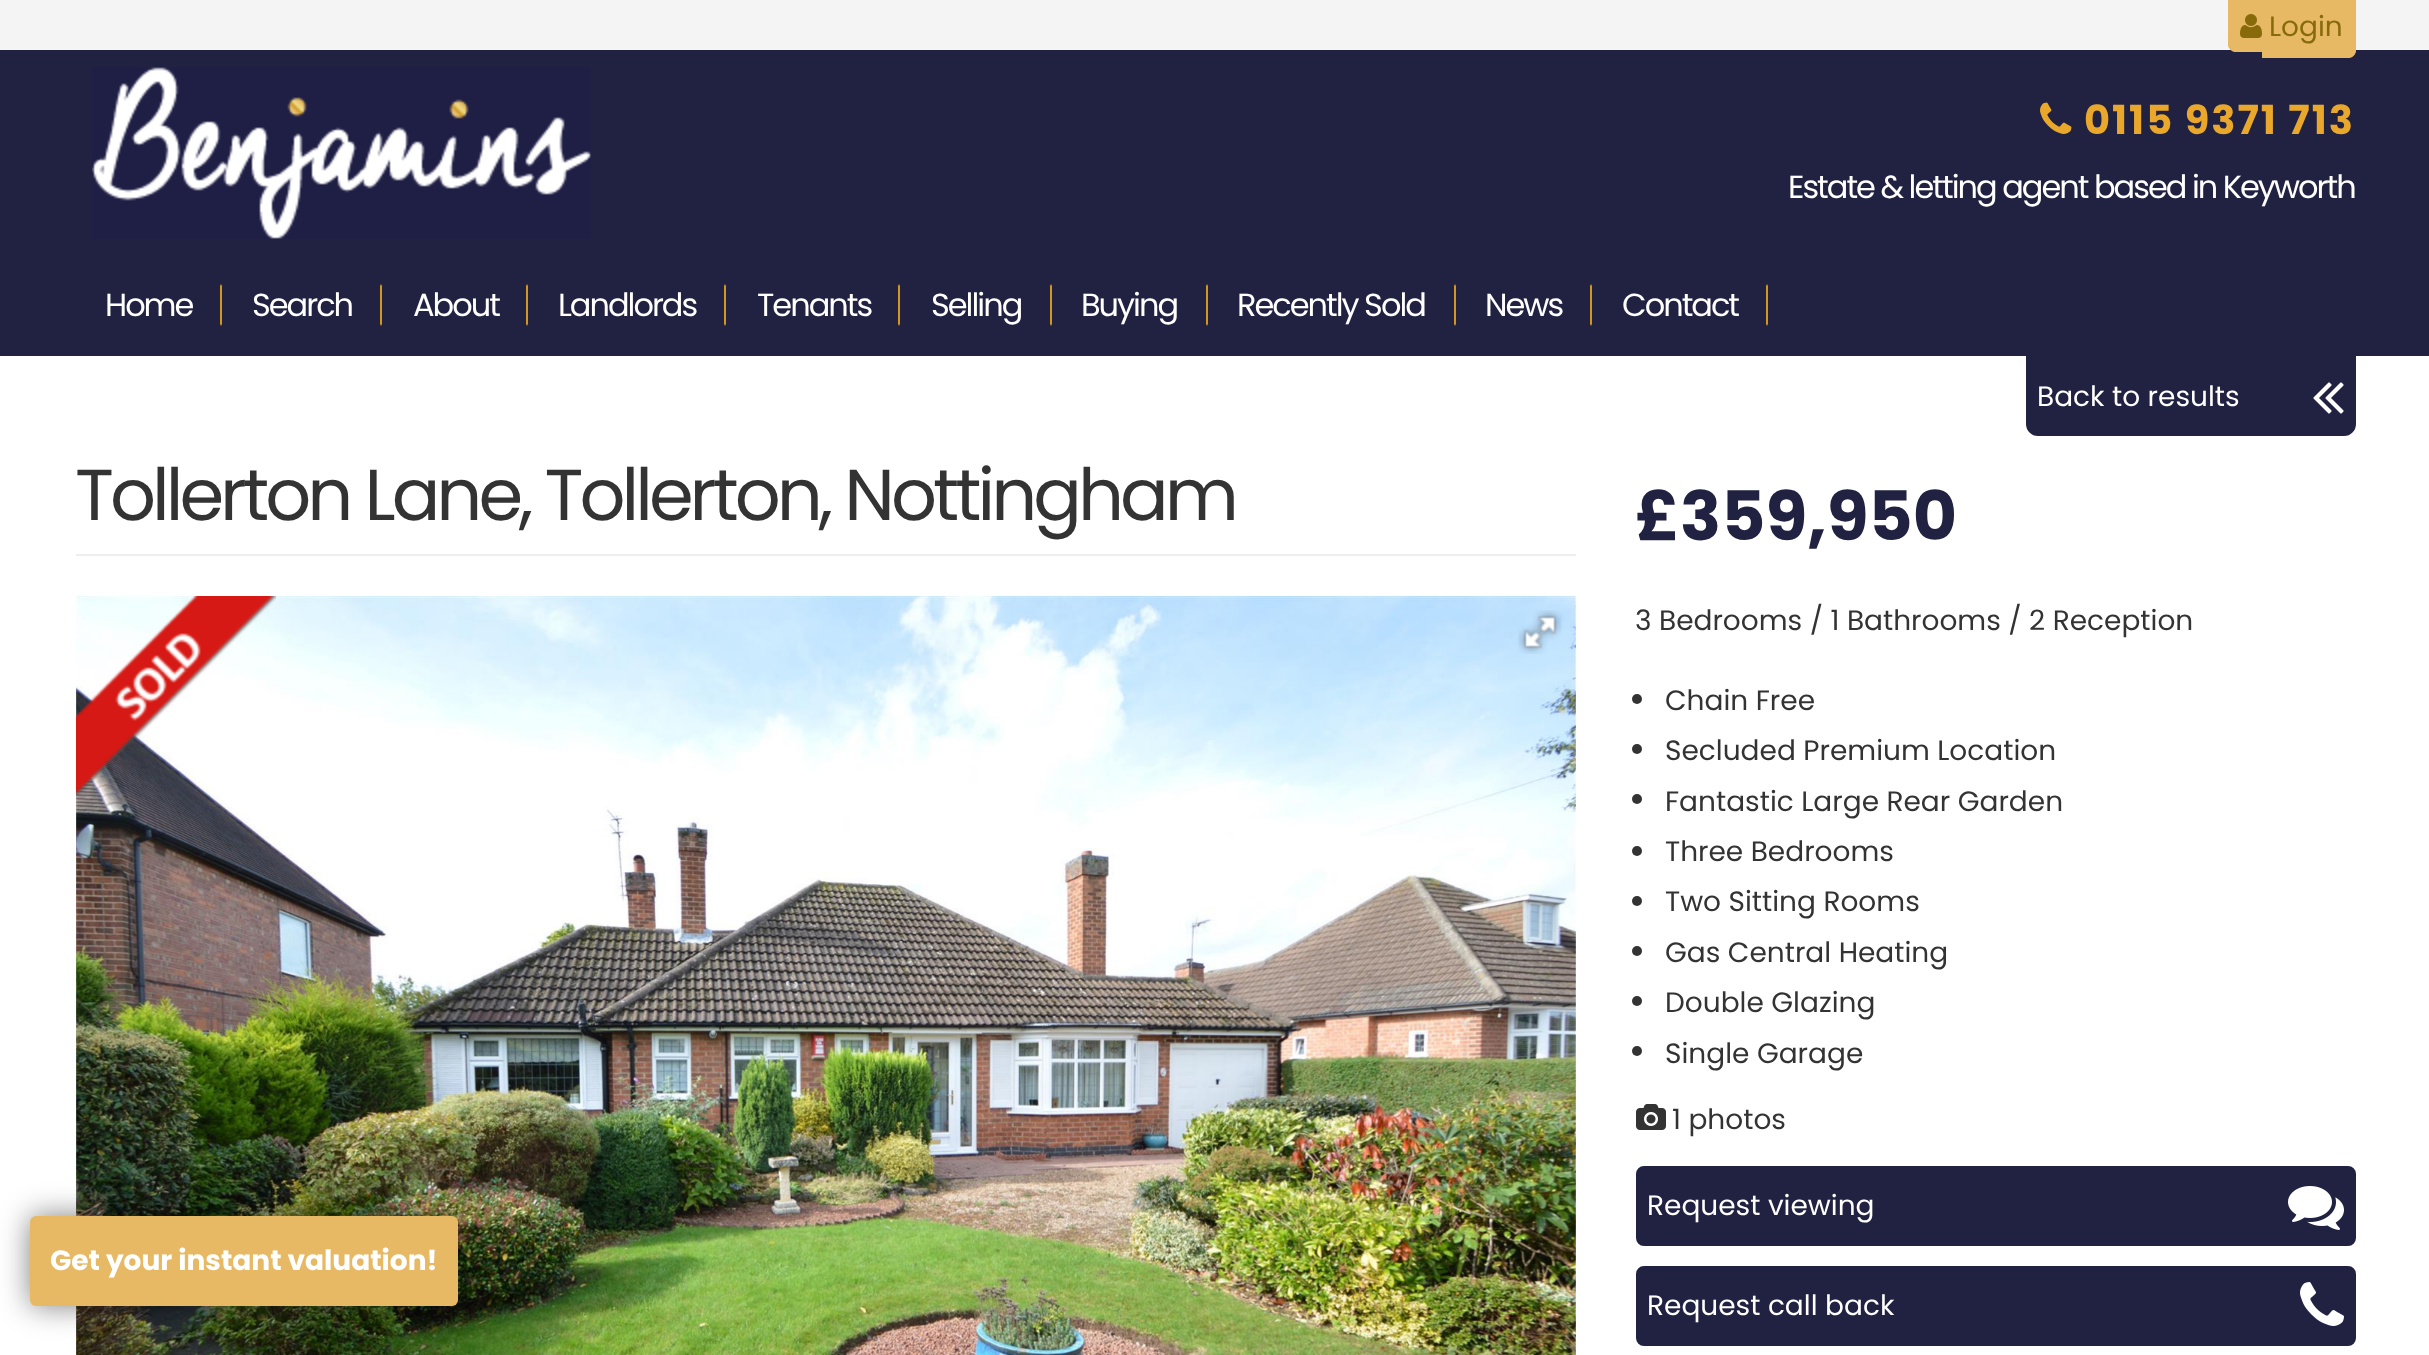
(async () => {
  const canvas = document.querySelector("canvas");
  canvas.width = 2429;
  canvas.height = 1355;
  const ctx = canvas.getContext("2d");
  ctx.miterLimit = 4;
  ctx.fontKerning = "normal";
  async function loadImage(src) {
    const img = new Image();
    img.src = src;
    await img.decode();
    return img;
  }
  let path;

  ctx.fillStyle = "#212142";
  ctx.fillRect(0, 0, 2429, 1355);
  ctx.fillStyle = "#f4f4f4";
  ctx.fillRect(0, 0, 2429, 50);
  ctx.fillStyle = "#e7b964";
  ctx.beginPath();
  ctx.roundRect(2228, 0, 34, 52, [0, 0, 0, 8]);
  ctx.fill();
  path = new Path2D("M2228 0H2262V52H2236C2232 52 2228 48 2228 44ZM2230 2H2262V50H2236C2233 50 2230 47 2230 44Z");
  ctx.fill(path, "evenodd");
  path = new Path2D("M2262-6H2356V50C2356 54.5 2352.5 58 2348 58H2262Z");
  ctx.fill(path);
  path = new Path2D("M2262-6H2356V50C2356 54 2352 58 2348 58H2262ZM2262-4H2354V50C2354 53 2351 56 2348 56H2262Z");
  ctx.fill(path, "evenodd");
  ctx.drawImage(await loadImage("img/1.png"), 2240, 14, 22, 24);
  ctx.drawImage(await loadImage("img/2.png"), 92, 67, 499, 172);
  ctx.drawImage(await loadImage("img/3.png"), 2040, 102, 32, 32);
  ctx.drawImage(await loadImage("img/4.png"), 220, 284, 2, 42);
  ctx.drawImage(await loadImage("img/4.png"), 380, 284, 2, 42);
  ctx.drawImage(await loadImage("img/4.png"), 526, 284, 2, 42);
  ctx.drawImage(await loadImage("img/4.png"), 724, 284, 2, 42);
  ctx.drawImage(await loadImage("img/4.png"), 898, 284, 2, 42);
  ctx.drawImage(await loadImage("img/4.png"), 1050, 284, 2, 42);
  ctx.drawImage(await loadImage("img/4.png"), 1206, 284, 2, 42);
  ctx.drawImage(await loadImage("img/4.png"), 1454, 284, 2, 42);
  ctx.drawImage(await loadImage("img/4.png"), 1590, 284, 2, 42);
  ctx.drawImage(await loadImage("img/4.png"), 1766, 284, 2, 42);
  ctx.fillStyle = "#ffffff";
  ctx.fillRect(0, 356, 2429, 999);
  ctx.fillStyle = "#212142";
  ctx.beginPath();
  ctx.roundRect(2027, 357, 328, 78, [0, 0, 11, 11]);
  ctx.fill();
  ctx.strokeStyle = "#212142";
  ctx.lineWidth = 2;
  ctx.stroke();
  ctx.drawImage(await loadImage("img/5.png"), 2313, 382, 31, 32);
  ctx.fillStyle = "#eeeeee";
  ctx.fillRect(76, 554, 1500, 2);
  ctx.drawImage(await loadImage("img/6.png"), 76, 596, 1500, 759);
  ctx.drawImage(await loadImage("img/7.png"), 1518, 610, 44, 44);
  ctx.drawImage(await loadImage("img/8.png"), 76, 596, 200, 200);
  ctx.fillStyle = "#333333";
  ctx.beginPath();
  ctx.arc(1637, 699, 5, 0, Math.PI * 2);
  ctx.fill();
  ctx.beginPath();
  ctx.arc(1637, 749, 5, 0, Math.PI * 2);
  ctx.fill();
  ctx.beginPath();
  ctx.arc(1637, 799, 5, 0, Math.PI * 2);
  ctx.fill();
  ctx.beginPath();
  ctx.arc(1637, 851, 5, 0, Math.PI * 2);
  ctx.fill();
  ctx.beginPath();
  ctx.arc(1637, 901, 5, 0, Math.PI * 2);
  ctx.fill();
  ctx.beginPath();
  ctx.arc(1637, 951, 5, 0, Math.PI * 2);
  ctx.fill();
  ctx.beginPath();
  ctx.arc(1637, 1001, 5, 0, Math.PI * 2);
  ctx.fill();
  ctx.beginPath();
  ctx.arc(1637, 1051, 5, 0, Math.PI * 2);
  ctx.fill();
  ctx.drawImage(await loadImage("img/9.png"), 1636, 1104, 30, 26);
  ctx.fillStyle = "#212142";
  ctx.beginPath();
  ctx.roundRect(1637, 1167, 718, 78, 7);
  ctx.fill();
  ctx.stroke();
  ctx.drawImage(await loadImage("img/10.png"), 2288, 1186, 56, 44);
  ctx.beginPath();
  ctx.roundRect(1637, 1267, 718, 78, 7);
  ctx.fill();
  ctx.stroke();
  ctx.drawImage(await loadImage("img/11.png"), 2300, 1282, 44, 44);
  ctx.fillStyle = "rgba(0, 0, 0, 0.5)";
  ctx.filter = "blur(15px)";
  ctx.beginPath();
  ctx.roundRect(30, 1216, 428, 90, 6);
  ctx.fill();
  ctx.filter = "none";
  ctx.fillStyle = "#e7b964";
  ctx.beginPath();
  ctx.roundRect(30, 1216, 428, 90, 6);
  ctx.fill();
  ctx.font = "28px Poppins";
  ctx.fillStyle = "#876b0b";
  ctx.fillText("Login", 2269, 36);
  ctx.letterSpacing = "2px";
  ctx.font = "bold 40px Poppins";
  ctx.fillStyle = "#e9a82b";
  ctx.fillText("0115 9371 713", 2084, 134);
  ctx.letterSpacing = "-2px";
  ctx.font = "32px Poppins";
  ctx.fillStyle = "#ffffff";
  for (const [text, x, y] of [
    ["Estate & letting agent based in Keyworth", 1788, 198],
    ["Home", 105, 316],
    ["Search", 252, 316],
    ["About", 413, 316],
    ["Landlords", 558, 316],
    ["Tenants", 757, 316],
    ["Selling", 931, 316],
    ["Buying", 1081, 316],
    ["Recently Sold", 1237, 316],
    ["News", 1485, 316],
    ["Contact", 1622, 316],
  ]) {
    ctx.fillText(text, x, y);
  }
  ctx.letterSpacing = "0px";
  ctx.font = "28px Poppins";
  ctx.fillText("Back to results", 2037, 406);
  ctx.letterSpacing = "-4px";
  ctx.font = "72px Poppins";
  ctx.fillStyle = "#333333";
  ctx.fillText("Tollerton Lane, Tollerton, Nottingham", 75, 520);
  ctx.letterSpacing = "0px";
  ctx.font = "bold 68px Poppins";
  ctx.fillStyle = "#212142";
  ctx.fillText("£359,950", 1635, 540);
  ctx.font = "28px Poppins";
  ctx.fillStyle = "#333333";
  for (const [text, x, y] of [
    ["3 Bedrooms / 1 Bathrooms / 2 Reception", 1635, 630],
    ["Chain Free", 1665, 710],
    ["Secluded Premium Location", 1665, 760],
    ["Fantastic Large Rear Garden", 1665, 811],
    ["Three Bedrooms", 1665, 861],
    ["Two Sitting Rooms", 1665, 911],
    ["Gas Central Heating", 1665, 962],
    ["Double Glazing", 1665, 1012],
    ["Single Garage", 1665, 1063],
    ["1 photos", 1672, 1129],
  ]) {
    ctx.fillText(text, x, y);
  }
  ctx.fillStyle = "#ffffff";
  ctx.fillText("Request viewing", 1647, 1215);
  ctx.fillText("Request call back", 1647, 1315);
  ctx.font = "bold 28px Poppins";
  ctx.fillText("Get your instant valuation!", 50, 1270);
})();
